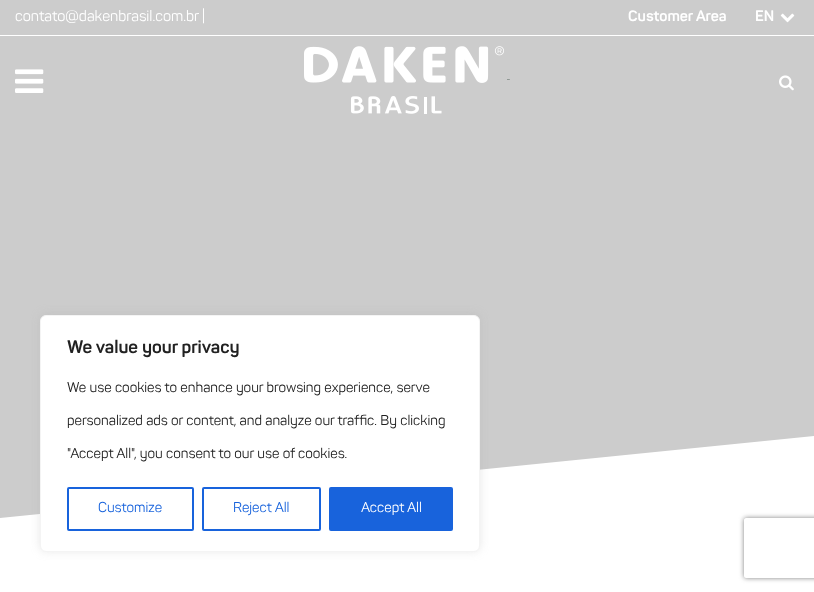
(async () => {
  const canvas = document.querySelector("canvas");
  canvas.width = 814;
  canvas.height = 592;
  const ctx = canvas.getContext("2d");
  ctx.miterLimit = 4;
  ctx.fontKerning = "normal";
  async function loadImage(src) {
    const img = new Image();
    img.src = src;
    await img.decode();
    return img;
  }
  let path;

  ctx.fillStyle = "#ffffff";
  ctx.fillRect(0, 0, 814, 592);
  ctx.fillStyle = "#cccccc";
  path = new Path2D("M0 0V518L814 436V0Z");
  ctx.fill(path);
  ctx.fillStyle = "#ffffff";
  ctx.fillRect(0, 35, 814, 1);
  ctx.drawImage(await loadImage("img/1.png"), 780, 13, 15, 10);
  ctx.drawImage(await loadImage("img/2.png"), 15, 69, 29, 24);
  ctx.drawImage(await loadImage("img/3.png"), 304, 46, 200, 68);
  ctx.drawImage(await loadImage("img/4.png"), 507, 79, 3, 1);
  ctx.drawImage(await loadImage("img/5.png"), 779, 75, 15, 16);
  ctx.fillStyle = "rgba(172, 171, 171, 0.3)";
  ctx.filter = "blur(5px)";
  ctx.beginPath();
  ctx.roundRect(40, 314, 440, 237, 6);
  ctx.fill();
  ctx.filter = "none";
  ctx.fillStyle = "#ffffff";
  ctx.beginPath();
  ctx.roundRect(40.5, 315.5, 439, 236, 5.5);
  ctx.fill();
  ctx.strokeStyle = "#f4f4f4";
  ctx.stroke();
  ctx.beginPath();
  ctx.roundRect(68, 488, 125, 42, 1);
  ctx.strokeStyle = "#1863dc";
  ctx.lineWidth = 2;
  ctx.stroke();
  ctx.beginPath();
  ctx.roundRect(203, 488, 117, 42, 1);
  ctx.stroke();
  ctx.fillStyle = "#1863dc";
  ctx.beginPath();
  ctx.roundRect(330, 488, 122, 42, 1);
  ctx.fill();
  ctx.stroke();
  ctx.save();
  path = new Path2D("M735 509H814V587H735ZM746 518H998C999 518 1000 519 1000 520V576C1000 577 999 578 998 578H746C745 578 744 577 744 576V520C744 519 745 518 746 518Z");
  ctx.clip(path, "evenodd");
  ctx.fillStyle = "#808080";
  ctx.filter = "blur(2.5px)";
  ctx.beginPath();
  ctx.roundRect(744, 518, 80, 60, 2);
  ctx.fill();
  ctx.filter = "none";
  ctx.restore();
  ctx.font = "15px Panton";
  ctx.fillStyle = "#ffffff";
  ctx.fillText("contato@dakenbrasil.com.br", 15, 21);
  ctx.fillText("|", 202, 21);
  ctx.font = "bold 15px Panton";
  ctx.fillText("Customer Area", 628, 21);
  ctx.fillText("EN", 755, 21);
  ctx.font = "bold 18px Panton";
  ctx.fillStyle = "#212121";
  ctx.fillText("We value your privacy", 67, 353);
  ctx.font = "14px Panton";
  for (const [text, x, y] of [
    ["We use cookies to enhance your browsing experience, serve", 67, 392],
    ["personalized ads or content, and analyze our traffic. By clicking", 67, 425],
    ["\"Accept All\", you consent to our use of cookies.", 67, 458],
  ]) {
    ctx.fillText(text, x, y);
  }
  ctx.fillStyle = "#1863dc";
  ctx.fillText("Customize", 98, 512);
  ctx.fillText("Reject All", 233, 512);
  ctx.fillStyle = "#ffffff";
  ctx.fillText("Accept All", 361, 512);
})();
